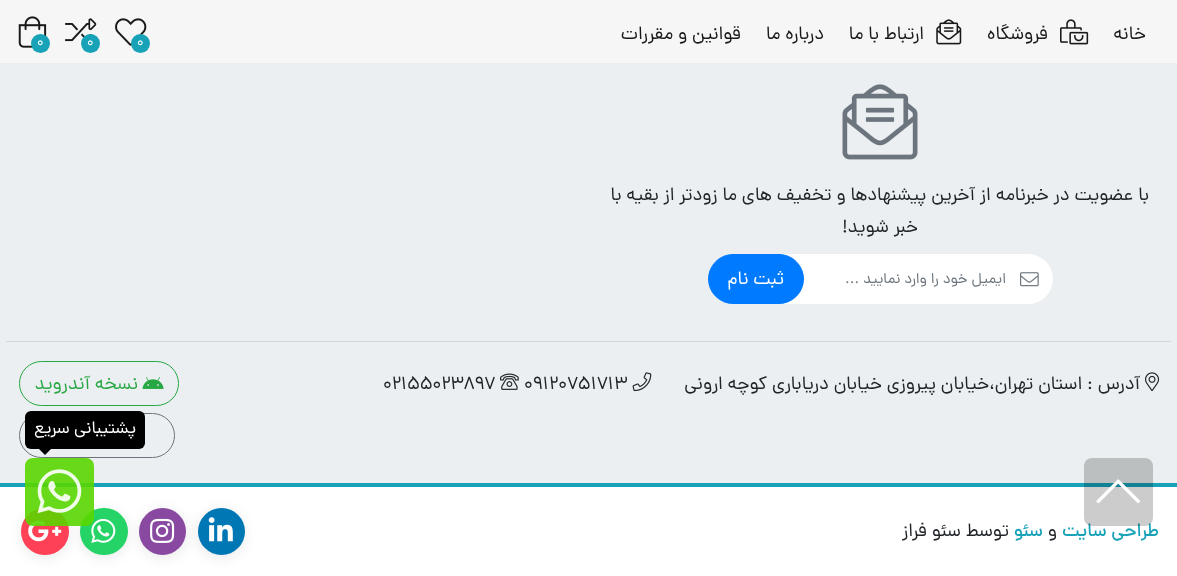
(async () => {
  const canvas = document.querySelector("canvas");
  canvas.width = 1177;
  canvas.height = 576;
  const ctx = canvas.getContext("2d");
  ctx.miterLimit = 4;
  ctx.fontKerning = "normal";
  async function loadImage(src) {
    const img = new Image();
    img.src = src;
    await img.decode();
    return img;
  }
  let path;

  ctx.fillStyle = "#eceff1";
  ctx.fillRect(0, 0, 1177, 576);
  ctx.fillStyle = "#f7f6f6";
  ctx.fillRect(0, 0, 1177, 63);
  ctx.drawImage(await loadImage("img/1.png"), 1060, 19, 29, 26);
  ctx.drawImage(await loadImage("img/2.png"), 936, 19, 26, 26);
  ctx.drawImage(await loadImage("img/3.png"), 115, 18, 32, 28);
  ctx.fillStyle = "#17a2b8";
  ctx.beginPath();
  ctx.arc(140.5, 43.5, 9.5, 0, Math.PI * 2);
  ctx.fill();
  ctx.drawImage(await loadImage("img/4.png"), 65, 18, 32, 24);
  ctx.beginPath();
  ctx.arc(90.5, 43.5, 9.5, 0, Math.PI * 2);
  ctx.fill();
  ctx.drawImage(await loadImage("img/5.png"), 18, 16, 29, 32);
  ctx.beginPath();
  ctx.arc(40.5, 43.5, 9.5, 0, Math.PI * 2);
  ctx.fill();
  ctx.drawImage(await loadImage("img/6.png"), 842, 84, 76, 76);
  ctx.fillStyle = "#ffffff";
  ctx.beginPath();
  ctx.roundRect(1006, 254, 47, 50, [0, 25, 25, 0]);
  ctx.fill();
  ctx.drawImage(await loadImage("img/7.png"), 1020, 272, 19, 15);
  ctx.fillRect(804, 254, 202, 50);
  ctx.beginPath();
  ctx.roundRect(708, 254, 96, 50, [25, 0, 0, 25]);
  ctx.fill();
  ctx.fillStyle = "#007bff";
  ctx.beginPath();
  ctx.roundRect(708.5, 254.5, 95, 49, 24.5);
  ctx.fill();
  ctx.strokeStyle = "#007bff";
  ctx.stroke();
  ctx.fillStyle = "#cfd8dc";
  ctx.fillRect(6, 341, 1165, 1);
  ctx.drawImage(await loadImage("img/8.png"), 1145, 372, 15, 19);
  ctx.drawImage(await loadImage("img/9.png"), 632, 372, 20, 20);
  ctx.drawImage(await loadImage("img/10.png"), 500, 373, 19, 17);
  ctx.beginPath();
  ctx.roundRect(19.5, 361.5, 159, 44, 22);
  ctx.strokeStyle = "#28a745";
  ctx.stroke();
  ctx.drawImage(await loadImage("img/11.png"), 142, 377, 22, 12);
  ctx.beginPath();
  ctx.roundRect(19.5, 413.5, 155, 44, 22);
  ctx.strokeStyle = "#6c757d";
  ctx.stroke();
  ctx.drawImage(await loadImage("img/12.png"), 145, 438, 1, 1);
  ctx.fillStyle = "#000000";
  ctx.beginPath();
  ctx.roundRect(25, 411, 120, 38, 6);
  ctx.fill();
  path = new Path2D("M37.5 447.5H52.5L45 455Z");
  ctx.fill(path);
  ctx.fillStyle = "#ffffff";
  ctx.fillRect(0, 487, 1177, 89);
  ctx.fillStyle = "#17a2b8";
  ctx.fillRect(0, 483, 1177, 4);
  ctx.fillStyle = "rgba(0, 0, 0, 0.07)";
  ctx.filter = "blur(6px)";
  ctx.beginPath();
  ctx.roundRect(20, 509, 50, 50, 25);
  ctx.fill();
  ctx.filter = "none";
  ctx.fillStyle = "#ff4157";
  ctx.beginPath();
  ctx.roundRect(21, 508, 48, 47, 23.5);
  ctx.fill();
  ctx.drawImage(await loadImage("img/18.png"), 28, 520, 34, 22);
  ctx.fillStyle = "rgba(0, 0, 0, 0.07)";
  ctx.filter = "blur(6px)";
  ctx.beginPath();
  ctx.roundRect(79, 509, 50, 50, 25);
  ctx.fill();
  ctx.filter = "none";
  ctx.fillStyle = "#25d366";
  ctx.beginPath();
  ctx.roundRect(80, 508, 48, 47, 23.5);
  ctx.fill();
  ctx.drawImage(await loadImage("img/17.png"), 91, 518, 25, 25);
  ctx.fillStyle = "rgba(89, 214, 0, 0.9)";
  ctx.beginPath();
  ctx.roundRect(25, 458, 69, 68, 8);
  ctx.fill();
  ctx.drawImage(await loadImage("img/13.png"), 37, 469, 45, 45);
  ctx.fillStyle = "rgba(0, 0, 0, 0.07)";
  ctx.filter = "blur(6px)";
  ctx.beginPath();
  ctx.roundRect(138, 509, 50, 50, 25);
  ctx.fill();
  ctx.filter = "none";
  ctx.fillStyle = "#8a49a1";
  ctx.beginPath();
  ctx.arc(162.5, 531.5, 23.5, 0, Math.PI * 2);
  ctx.fill();
  ctx.fillStyle = "rgba(0, 0, 0, 0.07)";
  ctx.filter = "blur(6px)";
  ctx.beginPath();
  ctx.roundRect(196, 509, 50, 50, 25);
  ctx.fill();
  ctx.filter = "none";
  ctx.fillStyle = "#0077b5";
  ctx.beginPath();
  ctx.arc(221.5, 531.5, 23.5, 0, Math.PI * 2);
  ctx.fill();
  ctx.drawImage(await loadImage("img/15.png"), 208, 517, 25, 25);
  ctx.drawImage(await loadImage("img/16.png"), 150, 518, 25, 25);
  ctx.direction = "rtl";
  ctx.font = "18.75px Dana";
  ctx.fillStyle = "#191919";
  for (const [text, x, y] of [
    ["خانه", 1146, 39],
    ["فروشگاه", 1048, 39],
    ["ارتباط با ما", 924, 39],
    ["درباره ما", 824, 39],
    ["قوانین و مقررات", 741, 39],
  ]) {
    ctx.fillText(text, x, y);
  }
  ctx.direction = "ltr";
  ctx.font = "14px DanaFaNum";
  ctx.fillStyle = "#ffffff";
  for (const [text, x, y] of [
    ["0", 137, 46],
    ["0", 87, 46],
    ["0", 37, 46],
  ]) {
    ctx.fillText(text, x, y);
  }
  ctx.direction = "rtl";
  ctx.font = "18.75px Dana";
  ctx.fillStyle = "#212529";
  ctx.fillText("با عضویت در خبرنامه از آخرین پیشنهادها و تخفیف های ما زودتر از بقیه با", 1149, 200);
  ctx.fillText("خبر شوید!", 918, 232);
  ctx.font = "15px Dana";
  ctx.fillStyle = "#6c757d";
  ctx.fillText("ایمیل خود را وارد نمایید ...", 1006, 283);
  ctx.font = "18.75px Dana";
  ctx.fillStyle = "#ffffff";
  ctx.fillText("ثبت نام", 784, 284);
  ctx.font = "18.75px DanaFaNum";
  ctx.fillStyle = "#212529";
  ctx.fillText("آدرس : استان تهران،خیابان پیروزی خیابان دریاباری کوچه ارونی", 1140, 389);
  ctx.direction = "ltr";
  ctx.fillText("09120751713", 524, 389);
  ctx.fillText("02155023897", 383, 389);
  ctx.direction = "rtl";
  ctx.font = "18.75px Dana";
  ctx.fillStyle = "#28a745";
  ctx.fillText("نسخه آندروید", 138, 389);
  ctx.font = "17.5px DanaFaNum";
  ctx.fillStyle = "#ffffff";
  ctx.fillText("پشتیبانی سریع", 136, 433);
  ctx.font = "500 18.75px Dana";
  ctx.fillStyle = "#17a2b8";
  ctx.fillText("طراحی سایت", 1159, 536);
  ctx.fillStyle = "rgba(0, 0, 0, 0.2)";
  ctx.beginPath();
  ctx.roundRect(1084, 458, 69, 68, 8);
  ctx.fill();
  ctx.drawImage(await loadImage("img/14.png"), 1096, 479, 44, 25);
  ctx.font = "18.75px Dana";
  ctx.fillStyle = "#212529";
  ctx.fillText("و", 1057, 536);
  ctx.font = "500 18.75px Dana";
  ctx.fillStyle = "#17a2b8";
  ctx.fillText("سئو", 1043, 536);
  ctx.font = "18.75px Dana";
  ctx.fillStyle = "#212529";
  ctx.fillText("توسط سئو فراز", 1009, 536);
})();
